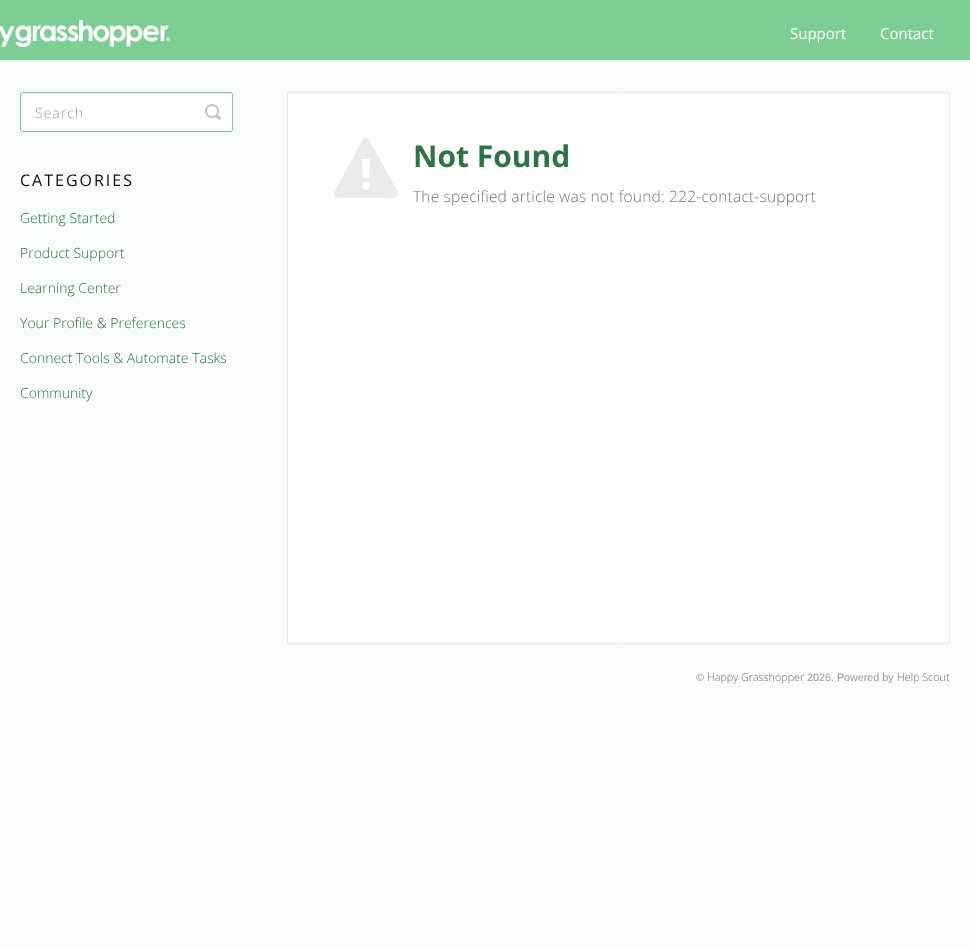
(async () => {
  const canvas = document.querySelector("canvas");
  canvas.width = 970;
  canvas.height = 949;
  const ctx = canvas.getContext("2d");
  ctx.miterLimit = 4;
  ctx.fontKerning = "normal";
  async function loadImage(src) {
    const img = new Image();
    img.src = src;
    await img.decode();
    return img;
  }
  let path;

  ctx.fillStyle = "#f8fcfa";
  ctx.fillRect(0, 0, 970, 949);
  ctx.fillStyle = "rgba(0, 0, 0, 0.07)";
  ctx.filter = "blur(2px)";
  ctx.beginPath();
  ctx.rect(0, 1, 970, 60);
  ctx.fill();
  ctx.filter = "none";
  ctx.fillStyle = "#7dce94";
  ctx.fillRect(0, 0, 970, 60);
  ctx.drawImage(await loadImage("img/1.png"), 0, 20, 170, 27);
  ctx.fillStyle = "#ffffff";
  ctx.beginPath();
  ctx.roundRect(20, 92, 213, 40, 3);
  ctx.fill();
  ctx.fillStyle = "#ececec";
  path = new Path2D("M23 94H230C231 94 232 95 232 96C232 95 232 93 230 93H23C21 93 21 95 21 96C21 95 22 94 23 94Z");
  ctx.fill(path);
  ctx.beginPath();
  ctx.roundRect(20.5, 92.5, 212, 39, 2.5);
  ctx.strokeStyle = "#7dce94";
  ctx.stroke();
  ctx.drawImage(await loadImage("img/2.png"), 205, 104, 16, 16);
  ctx.fillStyle = "#ffffff";
  ctx.beginPath();
  ctx.rect(287.5, 92.5, 662, 551);
  ctx.fill();
  ctx.strokeStyle = "#e9e5e5";
  ctx.stroke();
  ctx.fillStyle = "#ebebeb";
  path = new Path2D("M397 190L369 140L368 138C363 136 360 144 359 147L338 185C332 196 332 198 345 198H384C388 198 402 200 397 190ZM370 159L369 178H363L362 159ZM366 190C361 190 361 182 366 182C371 182 371 190 366 190Z");
  ctx.fill(path);
  ctx.font = "15px Open Sans";
  ctx.fillStyle = "#ffffff";
  ctx.fillText("Support", 790, 39);
  ctx.fillText("Contact", 880, 39);
  ctx.letterSpacing = "1px";
  ctx.font = "300 14px Open Sans";
  ctx.fillStyle = "#9b9b9b";
  ctx.fillText("Search", 35, 118);
  ctx.letterSpacing = "2px";
  ctx.font = "16px Open Sans";
  ctx.fillStyle = "#07120a";
  ctx.fillText("CATEGORIES", 20, 186);
  ctx.letterSpacing = "0px";
  ctx.font = "300 14px Open Sans";
  ctx.fillStyle = "#2c7541";
  for (const [text, x, y] of [
    ["Getting Started", 20, 223],
    ["Product Support", 20, 258],
    ["Learning Center", 20, 293],
    ["Your Profile & Preferences", 20, 328],
    ["Connect Tools & Automate Tasks", 20, 363],
    ["Community", 20, 398],
  ]) {
    ctx.fillText(text, x, y);
  }
  ctx.font = "bold 30px Open Sans";
  ctx.fillText("Not Found", 413, 167);
  ctx.letterSpacing = "0.15px";
  ctx.font = "300 15.6px Open Sans";
  ctx.fillStyle = "#757575";
  ctx.fillText("The specified article was not found: 222-contact-support", 413, 202);
  ctx.letterSpacing = "0px";
  ctx.font = "10.75px Liberation Sans";
  ctx.fillStyle = "#9b9b9b";
  ctx.fillText("©", 696, 681);
  ctx.font = "300 10.75px Open Sans";
  ctx.fillStyle = "#6e6e6e";
  ctx.fillText("Happy Grasshopper", 707, 681);
  ctx.font = "10.75px Liberation Sans";
  ctx.fillStyle = "#9b9b9b";
  ctx.fillText("2026. Powered by", 807, 681);
  ctx.font = "300 10.75px Open Sans";
  ctx.fillStyle = "#6e6e6e";
  ctx.fillText("Help Scout", 897, 681);
})();
